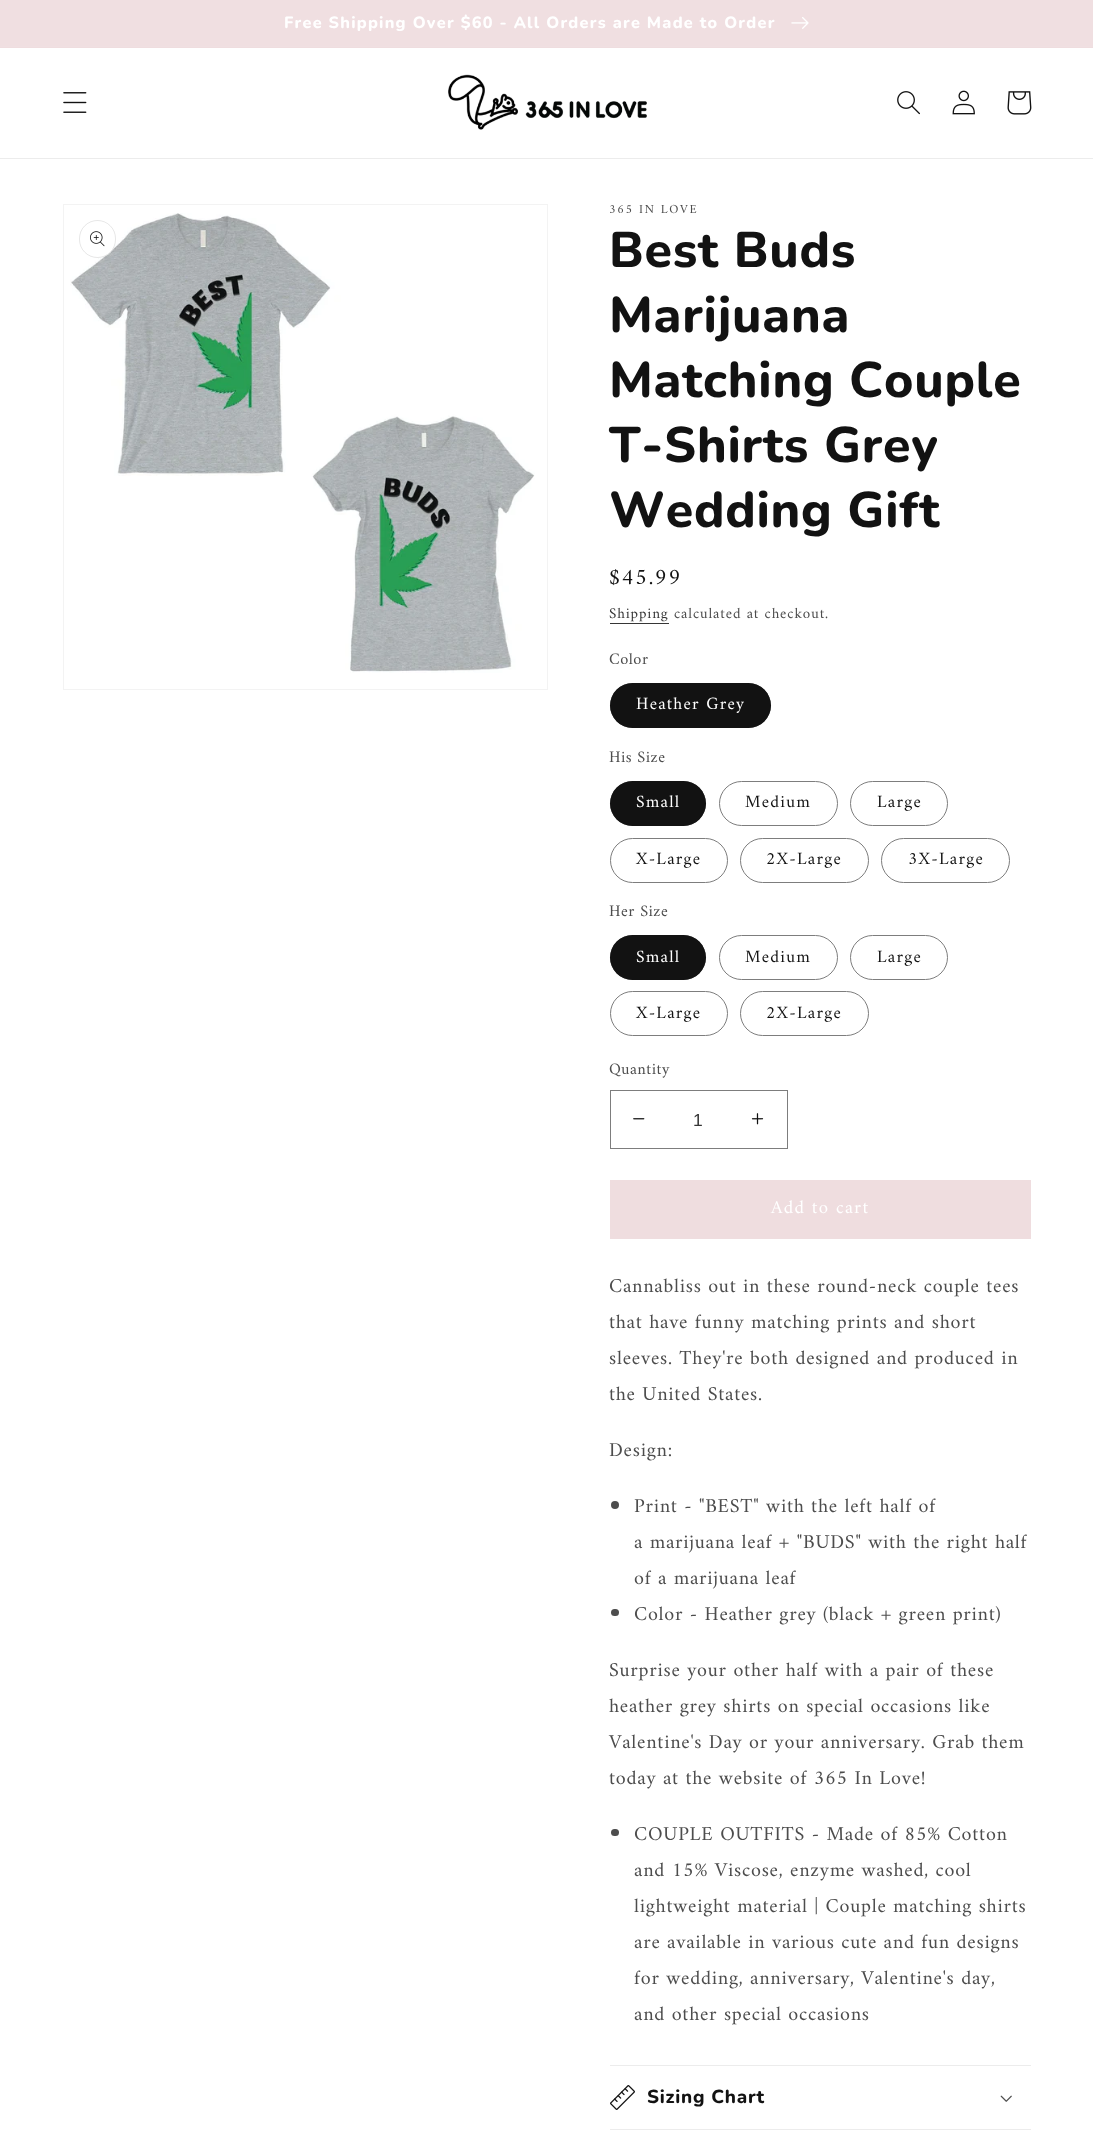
(async () => {
  const canvas = document.querySelector("canvas");
  canvas.width = 1093;
  canvas.height = 2140;
  const ctx = canvas.getContext("2d");
  ctx.miterLimit = 4;
  ctx.fontKerning = "none";
  async function loadImage(src) {
    const img = new Image();
    img.src = src;
    await img.decode();
    return img;
  }

  ctx.fillStyle = "#ffffff";
  ctx.fillRect(0, 0, 1093, 2140);
  for (const [x, y, w, h, color] of [
    [0, 47, 1093, 1, "#efdddf"],
    [0, 46, 1093, 1, "#f0e0e2"],
    [0, 0, 1093, 46, "#f0dfe1"],
  ]) {
    ctx.fillStyle = color;
    ctx.fillRect(x, y, w, h);
  }
  ctx.drawImage(await loadImage("img/1.png"), 791, 17, 18, 12);
  ctx.fillStyle = "#ececec";
  ctx.fillRect(0, 158, 1093, 1);
  ctx.drawImage(await loadImage("img/2.png"), 63, 92, 24, 21);
  ctx.drawImage(await loadImage("img/3.png"), 448, 74, 199, 56);
  ctx.drawImage(await loadImage("img/4.png"), 897, 91, 23, 24);
  ctx.drawImage(await loadImage("img/5.png"), 952, 90, 23, 25);
  ctx.drawImage(await loadImage("img/6.png"), 1007, 91, 25, 24);
  ctx.strokeStyle = "#f3f3f3";
  ctx.strokeRect(63.5, 204.5, 484, 485);
  ctx.drawImage(await loadImage("img/7.png"), 70, 213, 465, 460);
  ctx.fillStyle = "#ffffff";
  ctx.beginPath();
  ctx.roundRect(79, 220, 37, 38, 18.5);
  ctx.fill();
  ctx.beginPath();
  ctx.roundRect(79.5, 220.5, 36, 37, 18);
  ctx.strokeStyle = "rgba(18, 18, 18, 0.1)";
  ctx.stroke();
  ctx.drawImage(await loadImage("img/8.png"), 90, 231, 15, 16);
  ctx.fillStyle = "#363636";
  ctx.fillRect(610, 623, 59, 1);
  ctx.fillStyle = "#121212";
  ctx.beginPath();
  ctx.roundRect(610, 683, 161, 45, 22.5);
  ctx.fill();
  ctx.beginPath();
  ctx.roundRect(610.5, 683.5, 160, 44, 22);
  ctx.strokeStyle = "rgba(18, 18, 18, 0.55)";
  ctx.stroke();
  ctx.beginPath();
  ctx.roundRect(610, 781, 96, 45, 22.5);
  ctx.fill();
  ctx.beginPath();
  ctx.roundRect(610.5, 781.5, 95, 44, 22);
  ctx.stroke();
  ctx.beginPath();
  ctx.roundRect(719.5, 781.5, 118, 44, 22);
  ctx.strokeStyle = "#7d7d7d";
  ctx.stroke();
  ctx.beginPath();
  ctx.roundRect(850.5, 781.5, 97, 44, 22);
  ctx.stroke();
  ctx.beginPath();
  ctx.roundRect(610.5, 838.5, 117, 44, 22);
  ctx.stroke();
  ctx.beginPath();
  ctx.roundRect(740.5, 838.5, 128, 44, 22);
  ctx.stroke();
  ctx.beginPath();
  ctx.roundRect(881.5, 838.5, 128, 44, 22);
  ctx.stroke();
  ctx.beginPath();
  ctx.roundRect(610, 935, 96, 45, 22.5);
  ctx.fill();
  ctx.beginPath();
  ctx.roundRect(610.5, 935.5, 95, 44, 22);
  ctx.strokeStyle = "rgba(18, 18, 18, 0.55)";
  ctx.stroke();
  ctx.beginPath();
  ctx.roundRect(719.5, 935.5, 118, 44, 22);
  ctx.strokeStyle = "#7d7d7d";
  ctx.stroke();
  ctx.beginPath();
  ctx.roundRect(850.5, 935.5, 97, 44, 22);
  ctx.stroke();
  ctx.beginPath();
  ctx.roundRect(610.5, 991.5, 117, 44, 22);
  ctx.stroke();
  ctx.beginPath();
  ctx.roundRect(740.5, 991.5, 128, 44, 22);
  ctx.stroke();
  ctx.drawImage(await loadImage("img/9.png"), 633, 1118, 12, 2);
  ctx.drawImage(await loadImage("img/10.png"), 751, 1113, 13, 12);
  ctx.strokeRect(610.5, 1090.5, 177, 58);
  ctx.fillStyle = "#efdddf";
  ctx.fillRect(610, 1180, 421, 59);
  ctx.fillStyle = "#4d4d4d";
  ctx.beginPath();
  ctx.arc(615, 1505, 4, 0, Math.PI * 2);
  ctx.fill();
  ctx.beginPath();
  ctx.roundRect(611, 1609, 8, 7, 3.5);
  ctx.fill();
  ctx.beginPath();
  ctx.roundRect(611, 1829, 8, 7, 3.5);
  ctx.fill();
  ctx.fillStyle = "#ececec";
  ctx.fillRect(610, 2065, 421, 1);
  ctx.fillRect(610, 2129, 421, 1);
  ctx.drawImage(await loadImage("img/11.png"), 610, 2085, 25, 25);
  ctx.drawImage(await loadImage("img/12.png"), 1000, 2095, 12, 7);
  ctx.letterSpacing = "1.25px";
  ctx.font = "800 16.25px Nunito";
  ctx.fillStyle = "#ffffff";
  ctx.fillText("Free Shipping Over $60 - All Orders are Made to Order", 284, 28);
  ctx.letterSpacing = "1.6px";
  ctx.font = "12.5px Amiri";
  ctx.fillStyle = "#4d4d4d";
  ctx.fillText("365 IN LOVE", 609, 213);
  ctx.letterSpacing = "0.75px";
  ctx.font = "800 50px Nunito";
  ctx.fillStyle = "#121212";
  for (const [text, x, y] of [
    ["Best Buds", 609, 267],
    ["Marijuana", 609, 332],
    ["Matching Couple", 609, 397],
    ["T-Shirts Grey", 609, 462],
    ["Wedding Gift", 609, 527],
  ]) {
    ctx.fillText(text, x, y);
  }
  ctx.letterSpacing = "1.6px";
  ctx.font = "22.5px Amiri";
  ctx.fillText("$45.99", 609, 584);
  ctx.letterSpacing = "0.9px";
  ctx.font = "15px Amiri";
  ctx.fillStyle = "#363636";
  ctx.fillText("Shipping", 609, 618);
  ctx.fillStyle = "#4d4d4d";
  ctx.fillText("calculated at checkout.", 674, 618);
  ctx.letterSpacing = "0.5px";
  ctx.font = "16.25px Amiri";
  ctx.fillText("Color", 609, 664);
  ctx.letterSpacing = "1.25px";
  ctx.font = "17.5px Amiri";
  ctx.fillStyle = "#ffffff";
  ctx.fillText("Heather Grey", 636, 709);
  ctx.letterSpacing = "0.5px";
  ctx.font = "16.25px Amiri";
  ctx.fillStyle = "#4d4d4d";
  ctx.fillText("His Size", 609, 762);
  ctx.letterSpacing = "1.25px";
  ctx.font = "17.5px Amiri";
  ctx.fillStyle = "#ffffff";
  ctx.fillText("Small", 636, 807);
  ctx.fillStyle = "#121212";
  for (const [text, x, y] of [
    ["Medium", 745, 807],
    ["Large", 877, 807],
    ["X-Large", 636, 864],
    ["2X-Large", 766, 864],
    ["3X-Large", 908, 864],
  ]) {
    ctx.fillText(text, x, y);
  }
  ctx.letterSpacing = "0.5px";
  ctx.font = "16.25px Amiri";
  ctx.fillStyle = "#4d4d4d";
  ctx.fillText("Her Size", 609, 916);
  ctx.letterSpacing = "1.25px";
  ctx.font = "17.5px Amiri";
  ctx.fillStyle = "#ffffff";
  ctx.fillText("Small", 636, 962);
  ctx.fillStyle = "#121212";
  for (const [text, x, y] of [
    ["Medium", 745, 962],
    ["Large", 877, 962],
    ["X-Large", 636, 1018],
    ["2X-Large", 766, 1018],
  ]) {
    ctx.fillText(text, x, y);
  }
  ctx.letterSpacing = "0.5px";
  ctx.font = "16.25px Amiri";
  ctx.fillStyle = "#4d4d4d";
  ctx.fillText("Quantity", 609, 1074);
  ctx.letterSpacing = "0px";
  ctx.font = "17.5px Liberation Sans";
  ctx.fillStyle = "#363636";
  ctx.fillText("1", 693, 1126);
  ctx.letterSpacing = "1.25px";
  ctx.font = "18.75px Amiri";
  ctx.fillStyle = "#ffffff";
  ctx.fillText("Add to cart", 771, 1213);
  ctx.letterSpacing = "0.75px";
  ctx.font = "20px Amiri";
  ctx.fillStyle = "#4d4d4d";
  for (const [text, x, y] of [
    ["Cannabliss out in these round-neck couple tees", 609, 1292],
    ["that have funny matching prints and short", 609, 1328],
    ["sleeves. They're both designed and produced in", 609, 1364],
    ["the United States.", 609, 1400],
    ["Design:", 609, 1456],
    ["Print - \"BEST\" with the left half of", 634, 1512],
    ["a marijuana leaf + \"BUDS\" with the right half", 634, 1548],
    ["of a marijuana leaf", 634, 1584],
    ["Color - Heather grey (black + green print)", 634, 1620],
    ["Surprise your other half with a pair of these", 609, 1676],
    ["heather grey shirts on special occasions like", 609, 1712],
    ["Valentine's Day or your anniversary. Grab them", 609, 1748],
    ["today at the website of 365 In Love!", 609, 1784],
    ["COUPLE OUTFITS - Made of 85% Cotton", 634, 1840],
    ["and 15% Viscose, enzyme washed, cool", 634, 1876],
    ["lightweight material | Couple matching shirts", 634, 1912],
    ["are available in various cute and fun designs", 634, 1948],
    ["for wedding, anniversary, Valentine's day,", 634, 1984],
    ["and other special occasions", 634, 2020],
  ]) {
    ctx.fillText(text, x, y);
  }
  ctx.font = "800 18.75px Nunito";
  ctx.fillStyle = "#121212";
  ctx.fillText("Sizing Chart", 647, 2103);
})();
